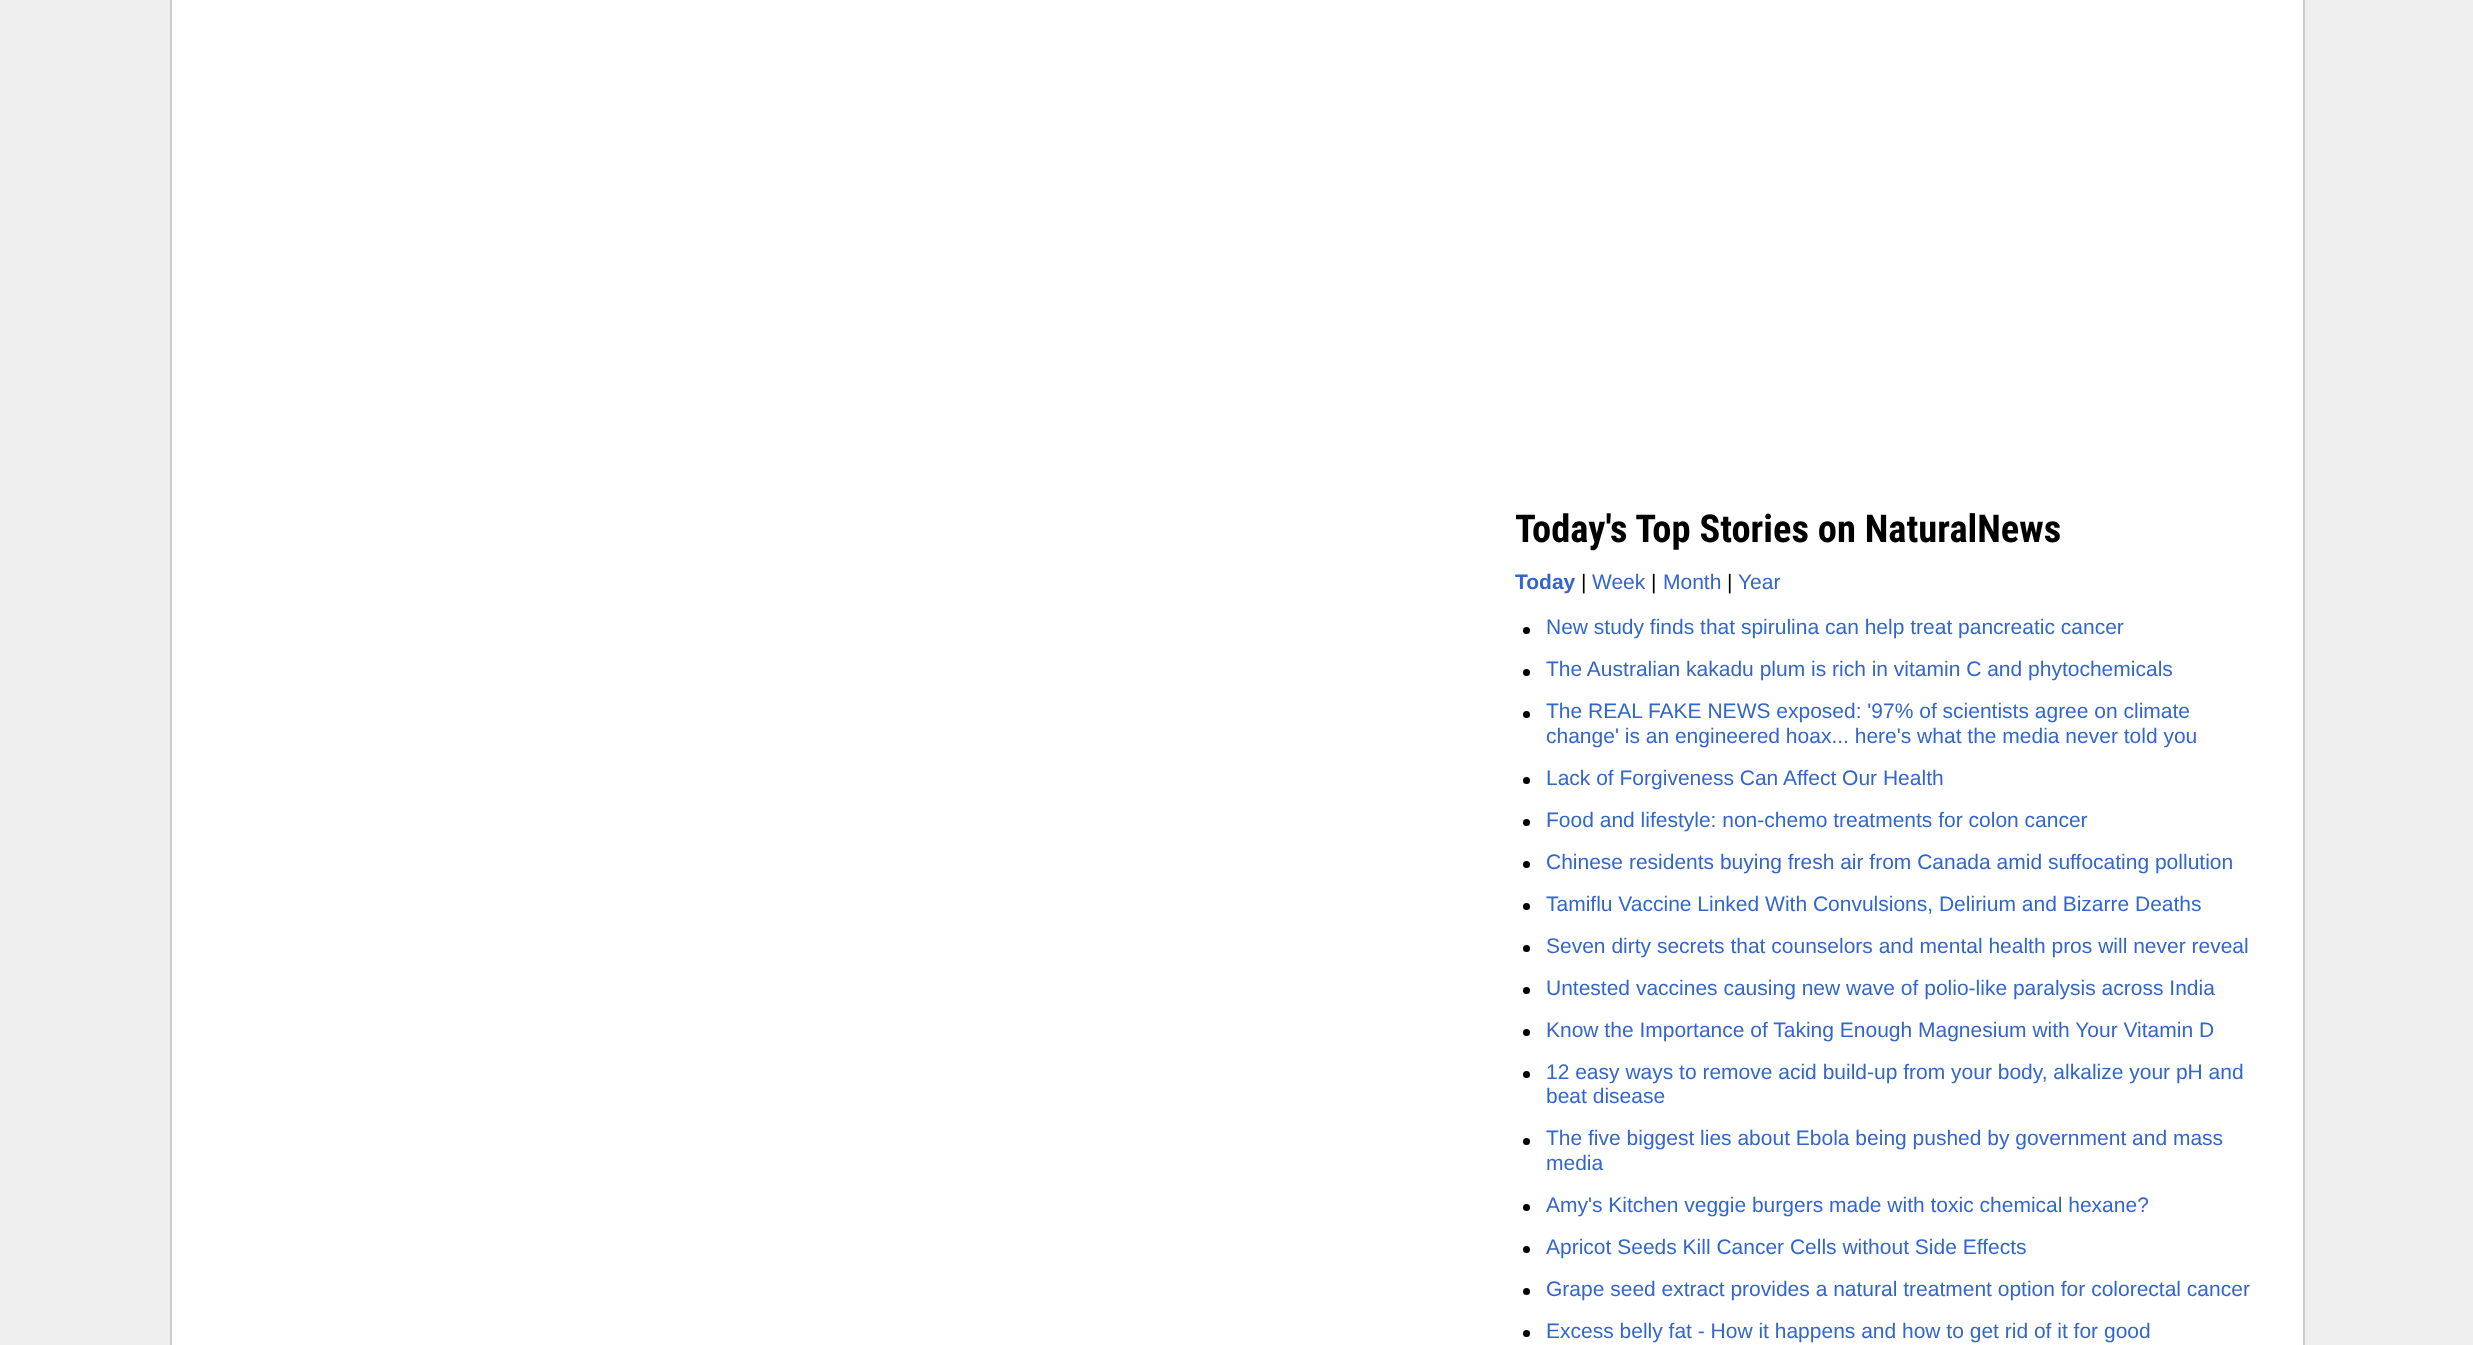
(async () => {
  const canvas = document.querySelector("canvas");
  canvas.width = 2473;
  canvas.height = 1345;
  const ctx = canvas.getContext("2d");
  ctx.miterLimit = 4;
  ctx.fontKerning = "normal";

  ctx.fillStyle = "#efefef";
  ctx.fillRect(0, 0, 2473, 1345);
  ctx.fillStyle = "#cccccc";
  ctx.fillRect(170, 0, 2135, 1345);
  ctx.fillStyle = "#ffffff";
  ctx.fillRect(172, 0, 2131, 1345);
  ctx.fillStyle = "#000000";
  ctx.beginPath();
  ctx.arc(1526.5, 630.5, 3.5, 0, Math.PI * 2);
  ctx.fill();
  ctx.beginPath();
  ctx.arc(1526.5, 672.5, 3.5, 0, Math.PI * 2);
  ctx.fill();
  ctx.beginPath();
  ctx.arc(1526.5, 714.5, 3.5, 0, Math.PI * 2);
  ctx.fill();
  ctx.beginPath();
  ctx.arc(1526.5, 780.5, 3.5, 0, Math.PI * 2);
  ctx.fill();
  ctx.beginPath();
  ctx.arc(1526.5, 822.5, 3.5, 0, Math.PI * 2);
  ctx.fill();
  ctx.beginPath();
  ctx.arc(1526.5, 864.5, 3.5, 0, Math.PI * 2);
  ctx.fill();
  ctx.beginPath();
  ctx.arc(1526.5, 906.5, 3.5, 0, Math.PI * 2);
  ctx.fill();
  ctx.beginPath();
  ctx.arc(1526.5, 948.5, 3.5, 0, Math.PI * 2);
  ctx.fill();
  ctx.beginPath();
  ctx.arc(1526.5, 990.5, 3.5, 0, Math.PI * 2);
  ctx.fill();
  ctx.beginPath();
  ctx.arc(1526.5, 1032.5, 3.5, 0, Math.PI * 2);
  ctx.fill();
  ctx.beginPath();
  ctx.arc(1526.5, 1074.5, 3.5, 0, Math.PI * 2);
  ctx.fill();
  ctx.beginPath();
  ctx.arc(1526.5, 1141.5, 3.5, 0, Math.PI * 2);
  ctx.fill();
  ctx.beginPath();
  ctx.arc(1526.5, 1207.5, 3.5, 0, Math.PI * 2);
  ctx.fill();
  ctx.beginPath();
  ctx.arc(1526.5, 1249.5, 3.5, 0, Math.PI * 2);
  ctx.fill();
  ctx.beginPath();
  ctx.arc(1526.5, 1291.5, 3.5, 0, Math.PI * 2);
  ctx.fill();
  ctx.beginPath();
  ctx.arc(1526.5, 1333.5, 3.5, 0, Math.PI * 2);
  ctx.fill();
  ctx.font = "bold 38.5px Roboto Condensed";
  ctx.fillText("Today's Top Stories on NaturalNews", 1515, 542);
  ctx.font = "bold 21px Liberation Sans";
  ctx.fillStyle = "#3366cc";
  ctx.fillText("Today", 1515, 589);
  ctx.font = "21px Liberation Sans";
  ctx.fillStyle = "#000000";
  ctx.fillText("|", 1581, 589);
  ctx.fillStyle = "#3366cc";
  ctx.fillText("Week", 1592, 589);
  ctx.fillStyle = "#000000";
  ctx.fillText("|", 1651, 589);
  ctx.fillStyle = "#3366cc";
  ctx.fillText("Month", 1663, 589);
  ctx.fillStyle = "#000000";
  ctx.fillText("|", 1727, 589);
  ctx.fillStyle = "#3366cc";
  for (const [text, x, y] of [
    ["Year", 1738, 589],
    ["New study finds that spirulina can help treat pancreatic cancer", 1546, 634],
    ["The Australian kakadu plum is rich in vitamin C and phytochemicals", 1546, 676],
    ["The REAL FAKE NEWS exposed: '97% of scientists agree on climate", 1546, 718],
    ["change' is an engineered hoax... here's what the media never told you", 1546, 743],
    ["Lack of Forgiveness Can Affect Our Health", 1546, 785],
    ["Food and lifestyle: non-chemo treatments for colon cancer", 1546, 827],
    ["Chinese residents buying fresh air from Canada amid suffocating pollution", 1546, 869],
    ["Tamiflu Vaccine Linked With Convulsions, Delirium and Bizarre Deaths", 1546, 911],
    ["Seven dirty secrets that counselors and mental health pros will never reveal", 1546, 953],
    ["Untested vaccines causing new wave of polio-like paralysis across India", 1546, 995],
    ["Know the Importance of Taking Enough Magnesium with Your Vitamin D", 1546, 1037],
    ["12 easy ways to remove acid build-up from your body, alkalize your pH and", 1546, 1079],
    ["beat disease", 1546, 1103],
    ["The five biggest lies about Ebola being pushed by government and mass", 1546, 1145],
    ["media", 1546, 1170],
    ["Amy's Kitchen veggie burgers made with toxic chemical hexane?", 1546, 1212],
    ["Apricot Seeds Kill Cancer Cells without Side Effects", 1546, 1254],
    ["Grape seed extract provides a natural treatment option for colorectal cancer", 1546, 1296],
    ["Excess belly fat - How it happens and how to get rid of it for good", 1546, 1338],
  ]) {
    ctx.fillText(text, x, y);
  }
})();
